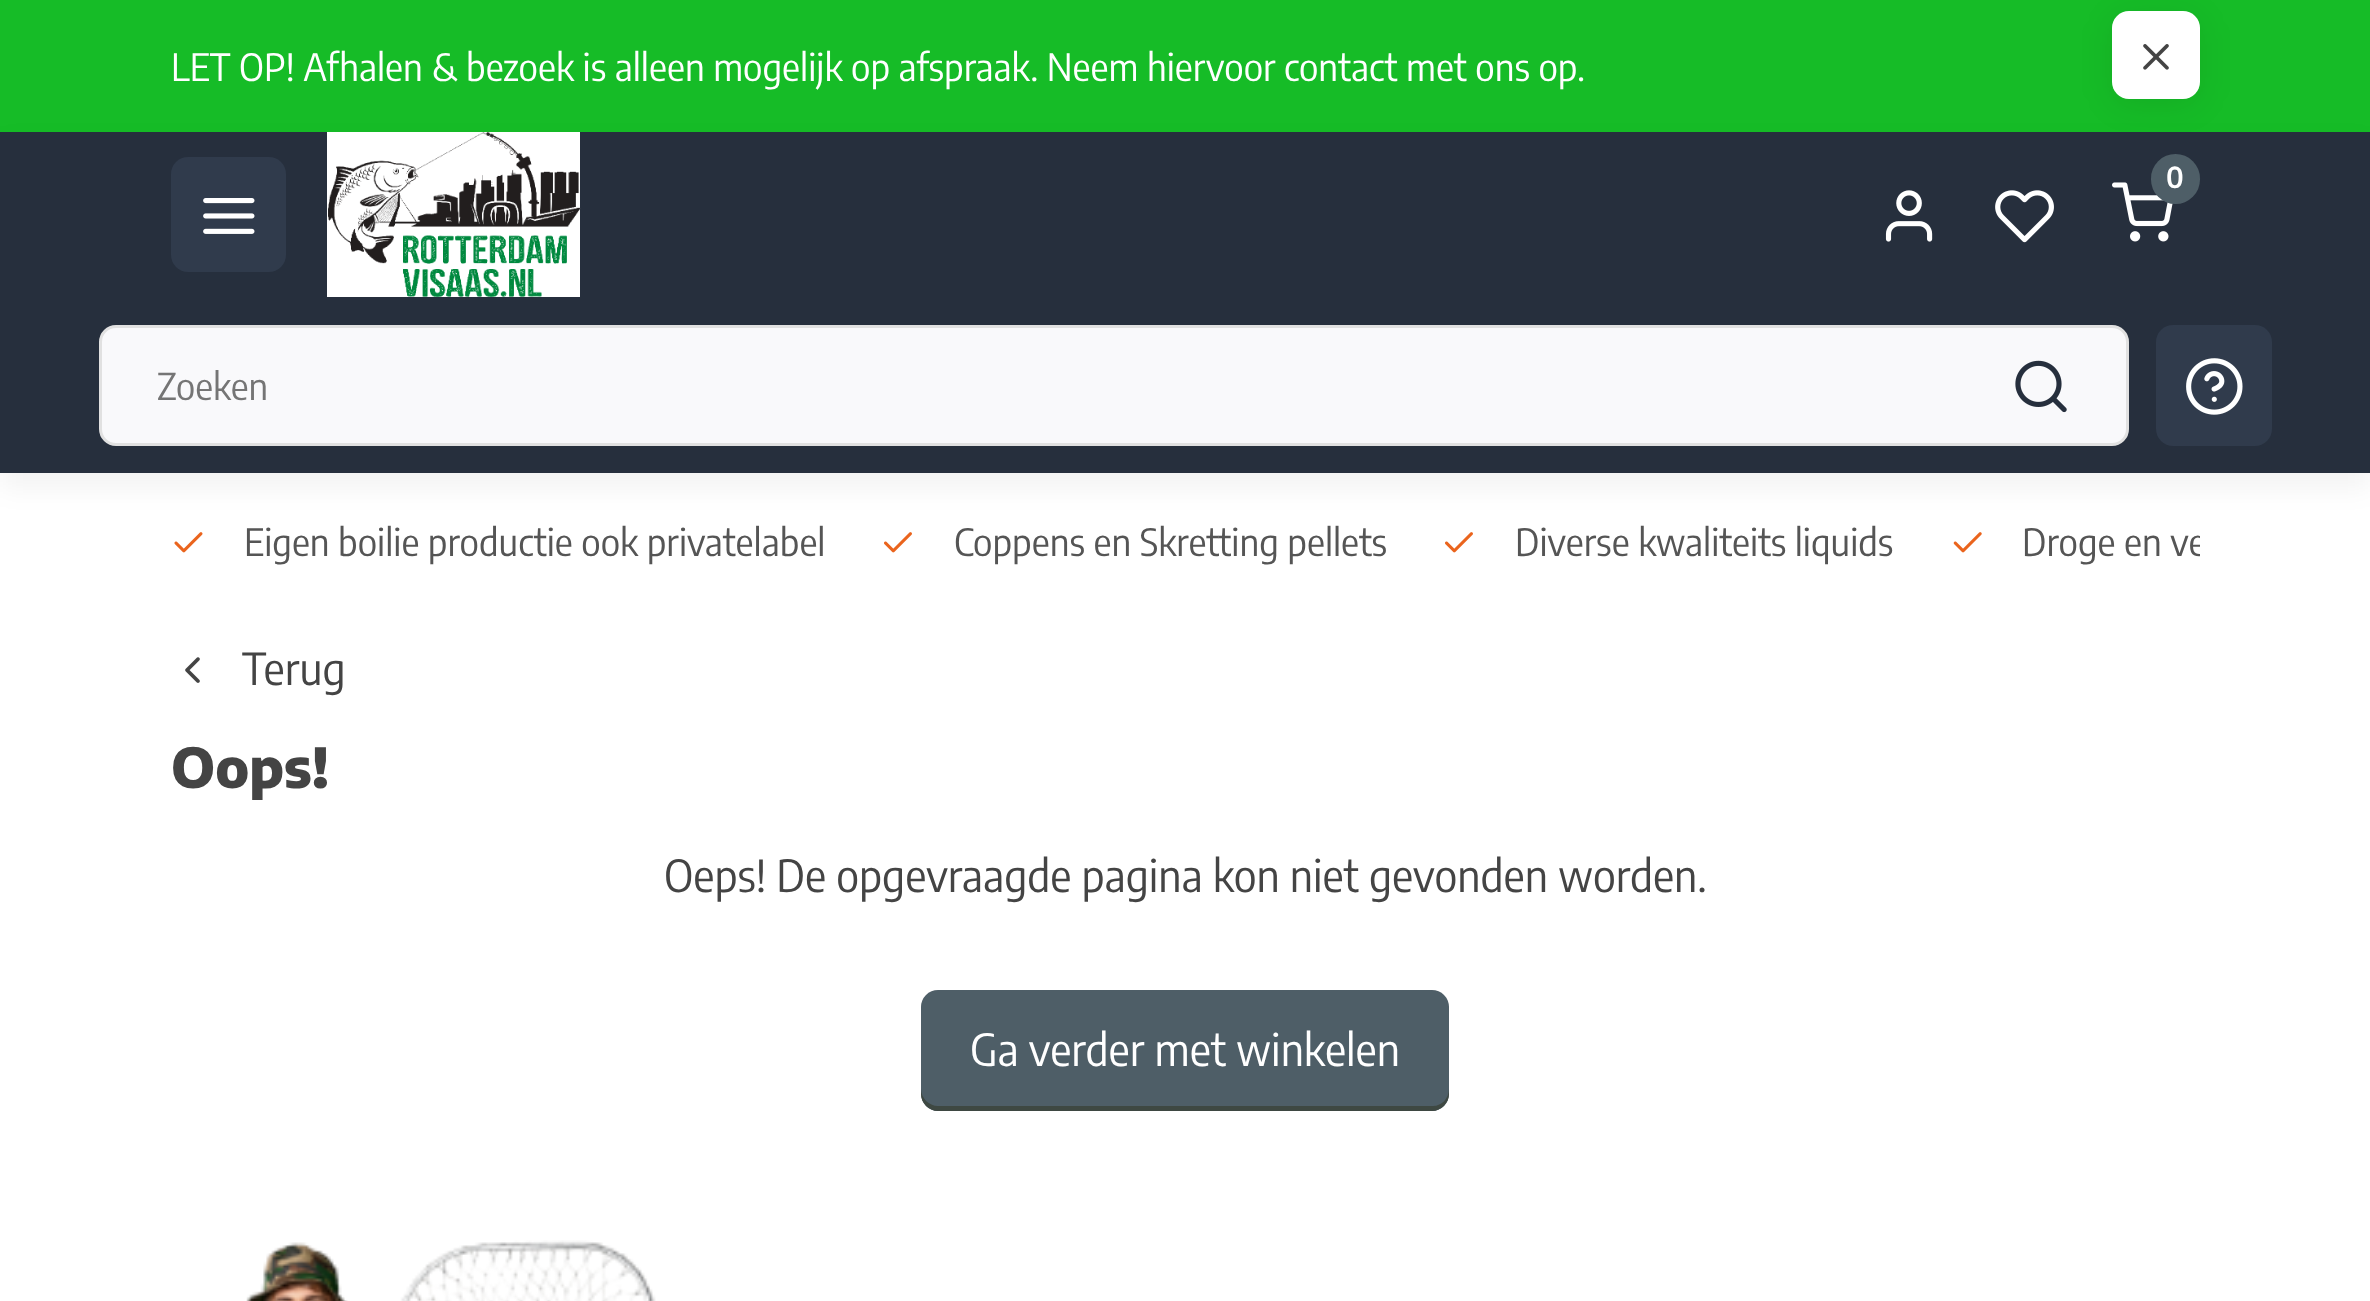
(async () => {
  const canvas = document.querySelector("canvas");
  canvas.width = 2370;
  canvas.height = 1301;
  const ctx = canvas.getContext("2d");
  ctx.miterLimit = 4;
  ctx.fontKerning = "normal";
  async function loadImage(src) {
    const img = new Image();
    img.src = src;
    await img.decode();
    return img;
  }
  let path;

  ctx.fillStyle = "#ffffff";
  ctx.fillRect(0, 0, 2370, 1301);
  ctx.fillStyle = "#16bc27";
  ctx.fillRect(0, 0, 2370, 132);
  ctx.fillStyle = "rgba(0, 0, 0, 0.08)";
  ctx.filter = "blur(16.5px)";
  ctx.beginPath();
  ctx.roundRect(2112, 17, 88, 88, 17);
  ctx.fill();
  ctx.filter = "none";
  ctx.fillStyle = "#ffffff";
  ctx.beginPath();
  ctx.roundRect(2112, 11, 88, 88, 17);
  ctx.fill();
  ctx.drawImage(await loadImage("img/1.png"), 2143, 44, 26, 26);
  ctx.fillStyle = "rgba(0, 0, 0, 0.05)";
  ctx.filter = "blur(14px)";
  ctx.beginPath();
  ctx.rect(0, 146, 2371, 341);
  ctx.fill();
  ctx.filter = "none";
  ctx.fillStyle = "#262f3d";
  ctx.fillRect(0, 132, 2370, 341);
  ctx.fillStyle = "#303b4c";
  ctx.beginPath();
  ctx.roundRect(171, 157, 115, 115, 17);
  ctx.fill();
  ctx.drawImage(await loadImage("img/2.png"), 203, 198, 52, 36);
  ctx.fillStyle = "#ffffff";
  ctx.fillRect(327, 132, 253, 165);
  ctx.drawImage(await loadImage("img/3.png"), 328, 132, 253, 165);
  ctx.drawImage(await loadImage("img/4.png"), 2112, 182, 61, 60);
  ctx.fillStyle = "#4e5e67";
  ctx.beginPath();
  ctx.roundRect(2151, 154, 49, 50, 24.5);
  ctx.fill();
  ctx.drawImage(await loadImage("img/5.png"), 1885, 190, 48, 52);
  ctx.drawImage(await loadImage("img/6.png"), 1995, 190, 59, 53);
  ctx.fillStyle = "#f9f9fb";
  ctx.beginPath();
  ctx.roundRect(100.5, 326.5, 2027, 118, 15.5);
  ctx.fill();
  ctx.strokeStyle = "#e1e1e1";
  ctx.lineWidth = 3;
  ctx.stroke();
  ctx.drawImage(await loadImage("img/7.png"), 2015, 360, 52, 53);
  ctx.fillStyle = "#303b4c";
  ctx.beginPath();
  ctx.roundRect(2156, 325, 116, 121, 17);
  ctx.fill();
  ctx.drawImage(await loadImage("img/8.png"), 2186, 358, 57, 57);
  ctx.drawImage(await loadImage("img/9.png"), 174, 532, 29, 21);
  ctx.drawImage(await loadImage("img/10.png"), 884, 532, 28, 21);
  ctx.drawImage(await loadImage("img/10.png"), 1445, 532, 28, 21);
  ctx.drawImage(await loadImage("img/11.png"), 1953, 532, 29, 21);
  ctx.drawImage(await loadImage("img/12.png"), 185, 657, 15, 26);
  ctx.fillStyle = "#4e5e67";
  ctx.beginPath();
  ctx.roundRect(921, 990, 528, 121, 17);
  ctx.fill();
  ctx.fillStyle = "#3e4842";
  path = new Path2D("M921 1089V1094C921 1103 929 1111 938 1111H1432C1441 1111 1449 1103 1449 1094V1089C1449 1098 1442 1106 1433 1106H938C929 1106 921 1098 921 1089Z");
  ctx.fill(path);
  ctx.drawImage(await loadImage("img/13.png"), 246, 1240, 410, 61);
  ctx.font = "37.4px Encode Sans Semi Condensed";
  ctx.fillStyle = "#ffffff";
  ctx.fillText("LET OP! Afhalen & bezoek is alleen mogelijk op afspraak. Neem hiervoor contact met ons op.", 171, 81);
  ctx.font = "600 29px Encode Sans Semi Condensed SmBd";
  ctx.fillText("0", 2166, 188);
  ctx.font = "37px Encode Sans Semi Condensed";
  ctx.fillStyle = "#757575";
  ctx.fillText("Zoeken", 157, 400);
  ctx.font = "37.4px Encode Sans Semi Condensed";
  ctx.fillStyle = "#555555";
  for (const [text, x, y] of [
    ["Eigen boilie productie ook privatelabel", 244, 556],
    ["Coppens en Skretting pellets", 954, 556],
    ["Diverse kwaliteits liquids", 1515, 556],
  ]) {
    ctx.fillText(text, x, y);
  }
  ctx.save();
  ctx.beginPath();
  ctx.rect(171, 473, 2029, 138);
  ctx.clip();
  ctx.fillText("Droge en ve", 2022, 556);
  ctx.restore();
  ctx.font = "44px Encode Sans Semi Condensed";
  ctx.fillStyle = "#444444";
  ctx.fillText("Terug", 242, 685);
  ctx.font = "100 55px Encode Sans Condensed";
  ctx.fillText("Oops!", 171, 788);
  ctx.font = "44px Encode Sans Semi Condensed";
  ctx.fillText("Oeps! De opgevraagde pagina kon niet gevonden worden.", 664, 892);
  ctx.fillStyle = "#ffffff";
  ctx.fillText("Ga verder met winkelen", 970, 1066);
})();
